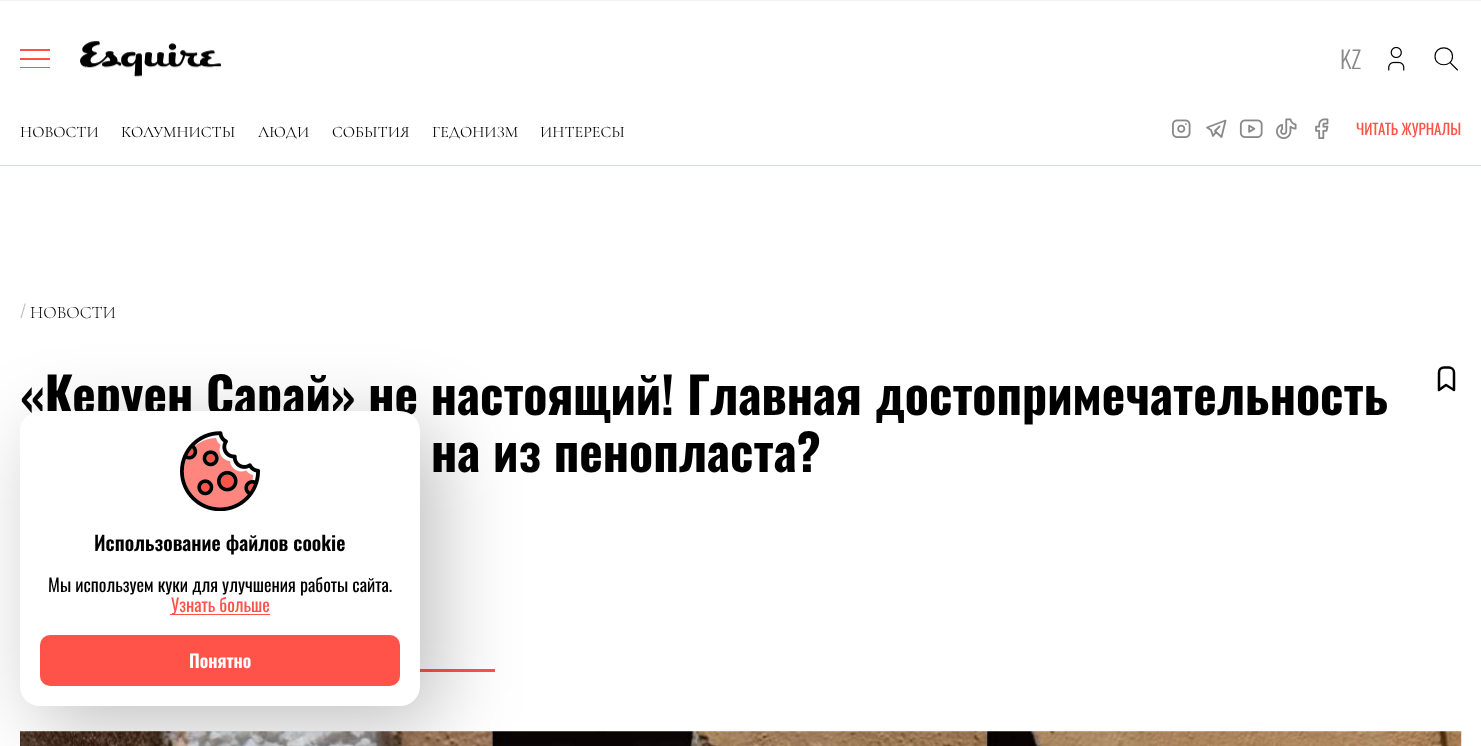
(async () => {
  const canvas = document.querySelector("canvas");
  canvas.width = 1481;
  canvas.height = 746;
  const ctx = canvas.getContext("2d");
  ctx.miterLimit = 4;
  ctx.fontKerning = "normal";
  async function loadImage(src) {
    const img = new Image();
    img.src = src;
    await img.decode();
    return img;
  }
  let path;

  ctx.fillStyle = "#ffffff";
  ctx.fillRect(0, 0, 1481, 746);
  for (const [x, y, w, h, color] of [
    [0, 0, 1481, 1, "#f2f2f2"],
    [0, 165, 1481, 1, "#d5dbe3"],
    [20, 49, 30, 2, "#ff5349"],
    [20, 58, 30, 2, "#ff5349"],
    [20, 67, 30, 1, "#ff5349"],
  ]) {
    ctx.fillStyle = color;
    ctx.fillRect(x, y, w, h);
  }
  ctx.drawImage(await loadImage("img/1.png"), 80, 41, 141, 36);
  ctx.drawImage(await loadImage("img/2.png"), 1388, 46, 17, 25);
  path = new Path2D("M1435 56.5C1435 67.5 1452.5 67.5 1452.5 56.5C1452.5 45 1435 45 1435 56.5ZM1457.5 70L1450 62.5");
  ctx.strokeStyle = "#000000";
  ctx.lineWidth = 1.1;
  ctx.lineCap = "round";
  ctx.lineJoin = "round";
  ctx.stroke(path);
  ctx.drawImage(await loadImage("img/3.png"), 1172, 119, 19, 19);
  path = new Path2D("M1219.5 126.5L1215 131L1221.5 137L1225.5 120.5L1207 127.5L1211 130L1213 136L1216 132");
  ctx.strokeStyle = "#888888";
  ctx.lineWidth = 1.8;
  ctx.stroke(path);
  ctx.drawImage(await loadImage("img/4.png"), 1239, 119, 24, 19);
  ctx.drawImage(await loadImage("img/5.png"), 1276, 118, 21, 21);
  ctx.drawImage(await loadImage("img/6.png"), 1315, 118, 14, 21);
  path = new Path2D("M1454 372.5V390L1446 385L1439 390V372.5C1439 369.5 1441 367.5 1444 367.5H1449C1451.5 367.5 1454 369.5 1454 372.5Z");
  ctx.strokeStyle = "#000000";
  ctx.lineWidth = 2.5;
  ctx.stroke(path);
  ctx.fillRect(420, 669, 75, 3);
  ctx.drawImage(await loadImage("img/8.png"), 20, 731, 1442, 15);
  ctx.fillStyle = "rgba(0, 0, 0, 0.25)";
  ctx.filter = "blur(40px)";
  ctx.beginPath();
  ctx.roundRect(38, 429, 400, 295, 20);
  ctx.fill();
  ctx.filter = "none";
  ctx.font = "300 24px Oswald";
  ctx.fillStyle = "#888888";
  ctx.fillText("KZ", 1340, 69);
  ctx.font = "16px Cormorant Garamond";
  ctx.fillStyle = "#000000";
  for (const [text, x, y] of [
    ["НОВОСТИ", 20, 137],
    ["КОЛУМНИСТЫ", 121, 137],
    ["ЛЮДИ", 258, 137],
    ["СОБЫТИЯ", 332, 137],
    ["ГЕДОНИЗМ", 432, 137],
    ["ИНТЕРЕСЫ", 540, 137],
  ]) {
    ctx.fillText(text, x, y);
  }
  ctx.font = "15px Oswald";
  ctx.fillStyle = "#ff5349";
  ctx.fillText("ЧИТАТЬ ЖУРНАЛЫ", 1356, 135);
  ctx.font = "300 18px Oswald";
  ctx.fillStyle = "#bfbfbf";
  ctx.fillText("/", 20, 318);
  ctx.font = "300 17.5px Cormorant Garamond";
  ctx.fillStyle = "#000000";
  ctx.fillText("НОВОСТИ", 30, 318);
  ctx.font = "bold 50px Oswald";
  ctx.fillText("«Керуен Сарай» не настоящий! Главная достопримечательность", 20, 415);
  ctx.fillText("на из пенопласта?", 431, 472);
  ctx.fillStyle = "#ffffff";
  ctx.beginPath();
  ctx.roundRect(20, 411, 400, 295, 20);
  ctx.fill();
  ctx.drawImage(await loadImage("img/7.png"), 180, 431, 80, 80);
  ctx.font = "600 20px Oswald";
  ctx.fillStyle = "#000000";
  ctx.fillText("Использование файлов cookie", 94, 551);
  ctx.font = "18px Oswald";
  ctx.fillText("Мы используем куки для улучшения работы сайта.", 48, 592);
  ctx.fillStyle = "#ff5349";
  ctx.fillRect(170, 614, 100, 1);
  ctx.fillText("Узнать больше", 171, 612);
  ctx.beginPath();
  ctx.roundRect(40, 635, 360, 51, 10);
  ctx.fill();
  ctx.font = "600 18px Oswald";
  ctx.fillStyle = "#ffffff";
  ctx.fillText("Понятно", 189, 668);
})();
